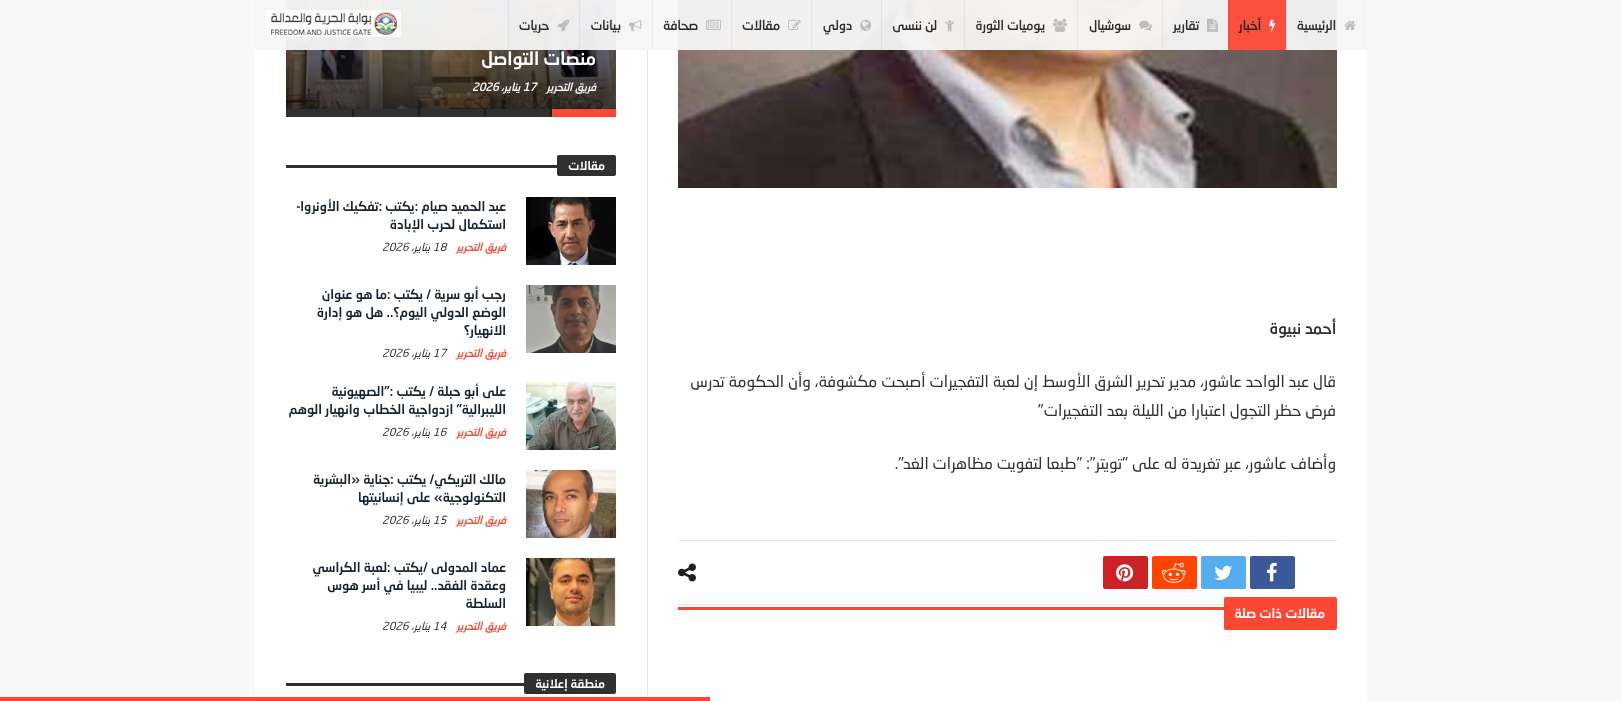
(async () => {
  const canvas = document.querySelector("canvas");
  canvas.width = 1621;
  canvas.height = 701;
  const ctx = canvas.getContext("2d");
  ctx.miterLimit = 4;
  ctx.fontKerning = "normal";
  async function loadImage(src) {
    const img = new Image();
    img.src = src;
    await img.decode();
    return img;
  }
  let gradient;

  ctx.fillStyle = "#f9f9f9";
  ctx.fillRect(0, 0, 1621, 701);
  ctx.fillStyle = "rgba(0, 0, 0, 0.3)";
  ctx.filter = "blur(0.5px)";
  ctx.beginPath();
  ctx.rect(255, -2, 1112, 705);
  ctx.fill();
  ctx.filter = "none";
  ctx.fillStyle = "#ffffff";
  ctx.fillRect(255, 0, 1112, 701);
  ctx.fillStyle = "#e8e8e8";
  ctx.fillRect(647, 0, 1, 701);
  ctx.drawImage(await loadImage("img/13.png"), 678, 0, 659, 188);
  ctx.drawImage(await loadImage("img/19.png"), 286, 0, 330, 109);
  gradient = ctx.createLinearGradient(451, -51, 451, 109);
  gradient.addColorStop(0, "rgba(0, 0, 0, 0)");
  gradient.addColorStop(1, "rgba(0, 0, 0, 0.7)");
  ctx.fillStyle = gradient;
  ctx.fillRect(286, 0, 330, 109);
  ctx.fillStyle = "rgba(245, 245, 245, 0.95)";
  ctx.fillRect(255, 0, 1112, 50);
  ctx.fillStyle = "#e3e2e2";
  ctx.fillRect(1286, 0, 1, 50);
  ctx.drawImage(await loadImage("img/1.png"), 1344, 20, 12, 10);
  ctx.fillStyle = "#fa503d";
  ctx.fillRect(1229, 0, 57, 50);
  ctx.fillStyle = "#ee4c3a";
  ctx.fillRect(1228, 0, 1, 50);
  ctx.drawImage(await loadImage("img/2.png"), 1269, 19, 7, 13);
  ctx.fillStyle = "rgba(0, 0, 0, 0.05)";
  ctx.fillRect(1162, 0, 1, 50);
  ctx.drawImage(await loadImage("img/3.png"), 1207, 18, 12, 14);
  ctx.fillRect(1077, 0, 1, 50);
  ctx.drawImage(await loadImage("img/4.png"), 1139, 20, 13, 11);
  ctx.fillRect(964, 0, 1, 50);
  ctx.drawImage(await loadImage("img/5.png"), 1053, 18, 14, 14);
  ctx.fillRect(881, 0, 1, 50);
  ctx.drawImage(await loadImage("img/6.png"), 945, 20, 9, 12);
  ctx.fillStyle = "#e5e4e4";
  ctx.fillRect(811, 0, 1, 50);
  ctx.drawImage(await loadImage("img/7.png"), 860, 19, 12, 12);
  ctx.fillRect(731, 0, 1, 50);
  ctx.drawImage(await loadImage("img/8.png"), 788, 19, 13, 11);
  ctx.fillStyle = "#eaeaea";
  ctx.fillRect(652, 0, 1, 50);
  ctx.drawImage(await loadImage("img/9.png"), 706, 19, 15, 11);
  ctx.fillStyle = "rgba(0, 0, 0, 0.05)";
  ctx.fillRect(579, 0, 1, 50);
  ctx.drawImage(await loadImage("img/10.png"), 629, 19, 13, 12);
  ctx.fillRect(508, 0, 1, 50);
  ctx.drawImage(await loadImage("img/11.png"), 557, 19, 12, 13);
  ctx.drawImage(await loadImage("img/12.png"), 265, 10, 136, 27);
  ctx.fillStyle = "#e8e8e8";
  ctx.fillRect(678, 540, 659, 1);
  ctx.fillRect(678, 604, 546, 1);
  ctx.fillStyle = "#3b5998";
  ctx.beginPath();
  ctx.roundRect(1250, 556, 45, 33, 2);
  ctx.fill();
  ctx.drawImage(await loadImage("img/14.png"), 1267, 562, 10, 20);
  ctx.fillStyle = "#55acee";
  ctx.beginPath();
  ctx.roundRect(1201, 556, 45, 33, 2);
  ctx.fill();
  ctx.drawImage(await loadImage("img/15.png"), 1214, 565, 18, 15);
  ctx.fillStyle = "#ff4500";
  ctx.beginPath();
  ctx.roundRect(1152, 556, 45, 33, 2);
  ctx.fill();
  ctx.drawImage(await loadImage("img/16.png"), 1161, 562, 25, 21);
  ctx.fillStyle = "#cc2127";
  ctx.beginPath();
  ctx.roundRect(1103, 556, 45, 33, 2);
  ctx.fill();
  ctx.drawImage(await loadImage("img/17.png"), 1116, 564, 18, 18);
  ctx.drawImage(await loadImage("img/18.png"), 678, 563, 18, 19);
  ctx.fillStyle = "#fb4834";
  ctx.fillRect(678, 607, 546, 3);
  ctx.beginPath();
  ctx.roundRect(1224, 597, 113, 33, 2);
  ctx.fill();
  for (const [x, y, w, h, color] of [
    [286, 109, 264, 8, "#303030"],
    [484, 109, 2, 8, "#1f1f1f"],
    [550, 109, 66, 8, "#fb4834"],
    [550, 109, 2, 8, "#1f1f1f"],
    [418, 109, 2, 8, "#1f1f1f"],
    [352, 109, 2, 8, "#1f1f1f"],
    [286, 165, 271, 3, "#303030"],
  ]) {
    ctx.fillStyle = color;
    ctx.fillRect(x, y, w, h);
  }
  ctx.beginPath();
  ctx.roundRect(557, 155, 59, 21, 2);
  ctx.fill();
  ctx.drawImage(await loadImage("img/20.png"), 526, 197, 90, 68);
  ctx.drawImage(await loadImage("img/21.png"), 526, 285, 90, 68);
  ctx.drawImage(await loadImage("img/22.png"), 526, 382, 90, 68);
  ctx.drawImage(await loadImage("img/23.png"), 526, 470, 90, 68);
  ctx.drawImage(await loadImage("img/24.png"), 526, 558, 90, 68);
  ctx.fillRect(286, 683, 238, 3);
  ctx.beginPath();
  ctx.roundRect(524, 673, 92, 21, 2);
  ctx.fill();
  ctx.fillStyle = "#fb4834";
  ctx.fillRect(0, 697, 710, 4);
  ctx.direction = "rtl";
  ctx.font = "bold 13px 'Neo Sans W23'";
  ctx.fillStyle = "#2f2e2e";
  ctx.fillText("الرئيسية", 1336, 30);
  ctx.fillStyle = "#302625";
  ctx.fillText("أخبار", 1261, 30);
  ctx.fillStyle = "#2f2e2e";
  for (const [text, x, y] of [
    ["تقارير", 1199, 30],
    ["سوشيال", 1131, 30],
    ["يوميات الثورة", 1045, 30],
    ["لن ننسى", 937, 30],
    ["دولي", 852, 30],
    ["مقالات", 780, 30],
    ["صحافة", 698, 30],
    ["بيانات", 621, 30],
    ["حريات", 549, 30],
  ]) {
    ctx.fillText(text, x, y);
  }
  ctx.font = "bold 16px 'Neo Sans W23'";
  ctx.fillStyle = "#2c2f34";
  ctx.fillText("أحمد نبيوة", 1336, 334);
  ctx.font = "16px 'Neo Sans W23'";
  for (const [text, x, y] of [
    ["قال عبد الواحد عاشور، مدير تحرير الشرق الأوسط إن لعبة التفجيرات أصبحت مكشوفة، وأن الحكومة تدرس", 1336, 387],
    ["فرض حظر التجول اعتبارا من الليلة بعد التفجيرات\"", 1336, 416],
    ["وأضاف عاشور، عبر تغريدة له على \"تويتر\": \"طبعا لتفويت مظاهرات الغد\".", 1336, 469],
  ]) {
    ctx.fillText(text, x, y);
  }
  ctx.font = "500 13px 'Neo Sans W23'";
  ctx.fillStyle = "#ffffff";
  ctx.fillText("مقالات ذات صلة", 1325, 618);
  ctx.font = "500 18px 'Neo Sans W23'";
  ctx.fillText("منصات التواصل", 596, 65);
  ctx.font = "italic bold 11px 'Neo Sans W23'";
  ctx.fillText("فريق التحرير", 596, 91);
  ctx.direction = "ltr";
  ctx.fillText("17", 523, 91);
  ctx.direction = "rtl";
  ctx.fillText("يناير،", 520, 91);
  ctx.direction = "ltr";
  ctx.fillText("2026", 472, 91);
  ctx.direction = "rtl";
  ctx.font = "500 12px 'Neo Sans W23'";
  ctx.fillText("مقالات", 605, 170);
  ctx.font = "500 13px 'Neo Sans W23'";
  ctx.fillStyle = "#19232d";
  ctx.fillText("عبد الحميد صيام :يكتب :تفكيك الأونروا-", 506, 211);
  ctx.fillText("استكمال لحرب الإبادة", 506, 229);
  ctx.font = "italic bold 11px 'Neo Sans W23'";
  ctx.fillStyle = "#fb4834";
  ctx.fillText("فريق التحرير", 506, 251);
  ctx.direction = "ltr";
  ctx.font = "italic 11px 'Neo Sans W23'";
  ctx.fillStyle = "#2c2f34";
  ctx.fillText("18", 433, 251);
  ctx.direction = "rtl";
  ctx.fillText("يناير،", 430, 251);
  ctx.direction = "ltr";
  ctx.fillText("2026", 382, 251);
  ctx.direction = "rtl";
  ctx.font = "500 13px 'Neo Sans W23'";
  ctx.fillStyle = "#19232d";
  for (const [text, x, y] of [
    ["رجب أبو سرية / يكتب :ما هو عنوان", 506, 299],
    ["الوضع الدولي اليوم؟.. هل هو إدارة", 506, 317],
    ["الانهيار؟", 506, 335],
  ]) {
    ctx.fillText(text, x, y);
  }
  ctx.font = "italic bold 11px 'Neo Sans W23'";
  ctx.fillStyle = "#fb4834";
  ctx.fillText("فريق التحرير", 506, 357);
  ctx.direction = "ltr";
  ctx.font = "italic 11px 'Neo Sans W23'";
  ctx.fillStyle = "#2c2f34";
  ctx.fillText("17", 433, 357);
  ctx.direction = "rtl";
  ctx.fillText("يناير،", 430, 357);
  ctx.direction = "ltr";
  ctx.fillText("2026", 382, 357);
  ctx.direction = "rtl";
  ctx.font = "500 13px 'Neo Sans W23'";
  ctx.fillStyle = "#19232d";
  for (const [text, x, y] of [
    ["على أبو حبلة / يكتب", 506, 396],
    [":”الصهيونية", 393, 396],
    ["الليبرالية” ازدواجية الخطاب وانهيار الوهم", 506, 414],
  ]) {
    ctx.fillText(text, x, y);
  }
  ctx.font = "italic bold 11px 'Neo Sans W23'";
  ctx.fillStyle = "#fb4834";
  ctx.fillText("فريق التحرير", 506, 436);
  ctx.direction = "ltr";
  ctx.font = "italic 11px 'Neo Sans W23'";
  ctx.fillStyle = "#2c2f34";
  ctx.fillText("16", 433, 436);
  ctx.direction = "rtl";
  ctx.fillText("يناير،", 430, 436);
  ctx.direction = "ltr";
  ctx.fillText("2026", 382, 436);
  ctx.direction = "rtl";
  ctx.font = "500 13px 'Neo Sans W23'";
  ctx.fillStyle = "#19232d";
  ctx.fillText("مالك التريكي/ يكتب :جناية «البشرية", 506, 484);
  ctx.fillText("التكنولوجية» على إنسانيتها", 506, 502);
  ctx.font = "italic bold 11px 'Neo Sans W23'";
  ctx.fillStyle = "#fb4834";
  ctx.fillText("فريق التحرير", 506, 524);
  ctx.direction = "ltr";
  ctx.font = "italic 11px 'Neo Sans W23'";
  ctx.fillStyle = "#2c2f34";
  ctx.fillText("15", 433, 524);
  ctx.direction = "rtl";
  ctx.fillText("يناير،", 430, 524);
  ctx.direction = "ltr";
  ctx.fillText("2026", 382, 524);
  ctx.direction = "rtl";
  ctx.font = "500 13px 'Neo Sans W23'";
  ctx.fillStyle = "#19232d";
  for (const [text, x, y] of [
    ["عماد المدولى /يكتب :لعبة الكراسي", 506, 572],
    ["وعقدة الفقد.. ليبيا في أسر هوس", 506, 590],
    ["السلطة", 506, 608],
  ]) {
    ctx.fillText(text, x, y);
  }
  ctx.font = "italic bold 11px 'Neo Sans W23'";
  ctx.fillStyle = "#fb4834";
  ctx.fillText("فريق التحرير", 506, 630);
  ctx.direction = "ltr";
  ctx.font = "italic 11px 'Neo Sans W23'";
  ctx.fillStyle = "#2c2f34";
  ctx.fillText("14", 433, 630);
  ctx.direction = "rtl";
  ctx.fillText("يناير،", 430, 630);
  ctx.direction = "ltr";
  ctx.fillText("2026", 382, 630);
  ctx.direction = "rtl";
  ctx.font = "500 12px 'Neo Sans W23'";
  ctx.fillStyle = "#ffffff";
  ctx.fillText("منطقة إعلانية", 605, 688);
})();
